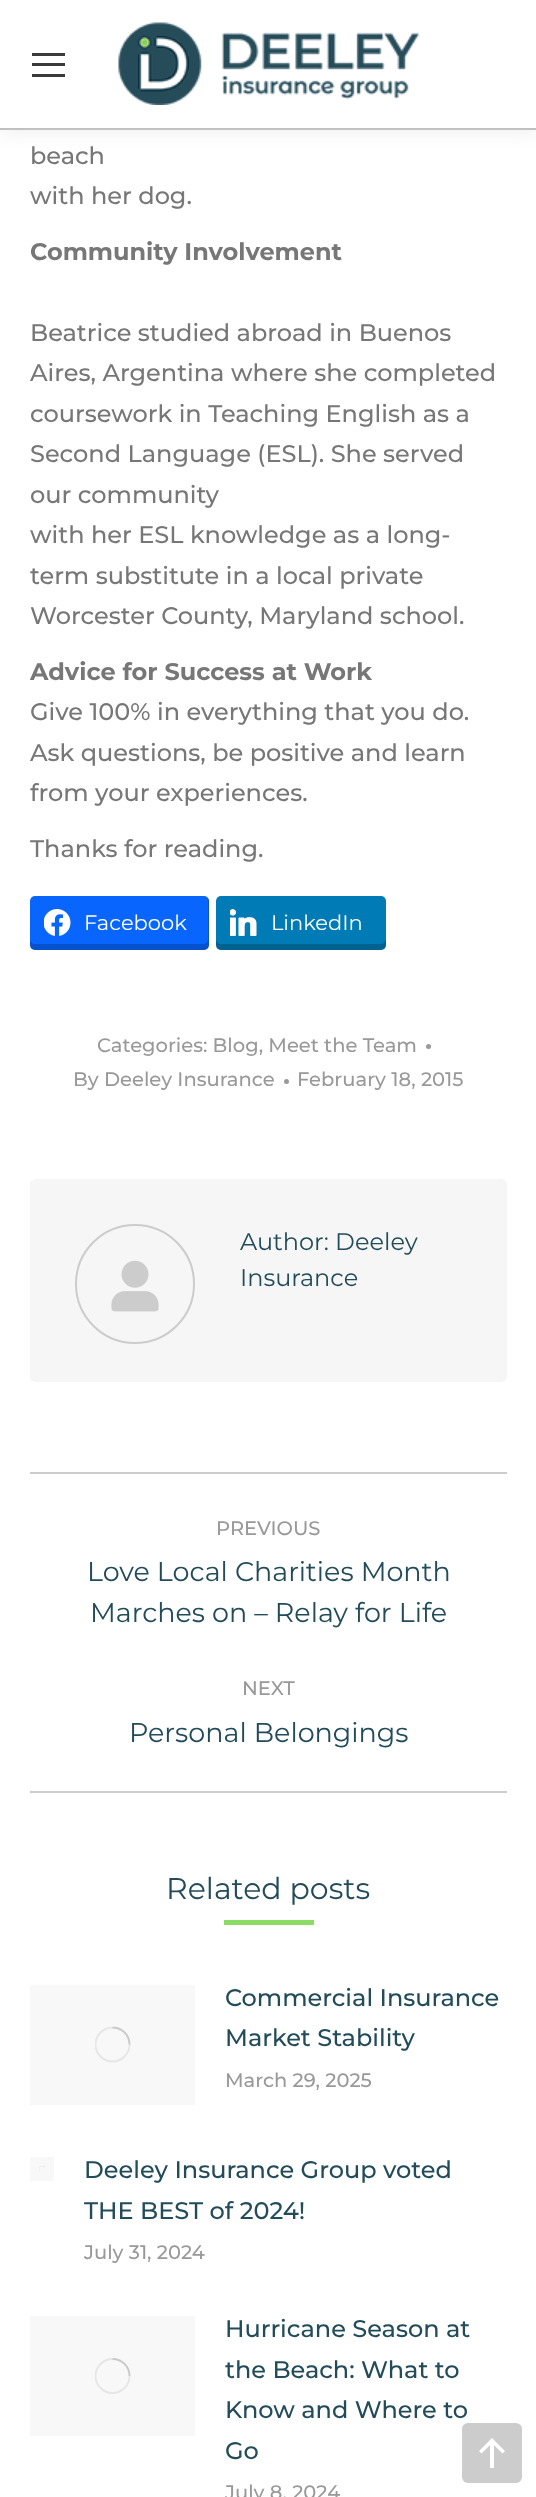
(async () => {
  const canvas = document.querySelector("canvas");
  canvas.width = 536;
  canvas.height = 2497;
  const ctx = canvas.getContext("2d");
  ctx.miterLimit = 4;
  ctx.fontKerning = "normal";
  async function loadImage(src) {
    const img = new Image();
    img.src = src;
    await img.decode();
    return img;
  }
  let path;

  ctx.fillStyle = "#ffffff";
  ctx.fillRect(0, 0, 536, 2497);
  ctx.fillStyle = "rgba(0, 0, 0, 0.07)";
  ctx.filter = "blur(11px)";
  ctx.beginPath();
  ctx.rect(-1, -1, 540, 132);
  ctx.fill();
  ctx.filter = "none";
  for (const [x, y, w, h, color] of [
    [0, 0, 536, 128, "#ffffff"],
    [0, 128, 536, 2, "#c0c0c0"],
    [32, 53, 33, 3, "#3a3a3a"],
    [32, 63, 33, 3, "#3a3a3a"],
    [32, 74, 33, 3, "#3a3a3a"],
  ]) {
    ctx.fillStyle = color;
    ctx.fillRect(x, y, w, h);
  }
  ctx.drawImage(await loadImage("img/1.png"), 118, 22, 301, 83);
  ctx.fillStyle = "#0866ff";
  ctx.beginPath();
  ctx.roundRect(30, 896, 179, 54, 5);
  ctx.fill();
  ctx.fillStyle = "rgba(0, 0, 0, 0.2)";
  path = new Path2D("M30 939V945C30 948 32 950 35 950H204C207 950 209 948 209 945V901C209 900 209 899 208 898V939C208 941 206 944 204 944H34C32 944 30 941 30 939Z");
  ctx.fill(path);
  ctx.drawImage(await loadImage("img/2.png"), 44, 909, 27, 27);
  ctx.fillStyle = "#007bb6";
  ctx.beginPath();
  ctx.roundRect(216, 896, 170, 54, 5);
  ctx.fill();
  ctx.fillStyle = "rgba(0, 0, 0, 0.2)";
  path = new Path2D("M216 939V945C216 948 218 950 221 950H381C384 950 386 948 386 945V939C386 941 383 944 381 944H220C218 944 216 941 216 939Z");
  ctx.fill(path);
  ctx.drawImage(await loadImage("img/3.png"), 230, 909, 27, 27);
  ctx.fillStyle = "#999999";
  ctx.beginPath();
  ctx.arc(428.5, 1046.5, 2.5, 0, Math.PI * 2);
  ctx.fill();
  ctx.beginPath();
  ctx.arc(286.5, 1081.5, 2.5, 0, Math.PI * 2);
  ctx.fill();
  ctx.fillStyle = "#f6f6f6";
  ctx.beginPath();
  ctx.roundRect(30, 1179, 477, 203, 6);
  ctx.fill();
  ctx.beginPath();
  ctx.arc(135, 1284, 59, 0, Math.PI * 2);
  ctx.strokeStyle = "#cccccc";
  ctx.lineWidth = 2;
  ctx.stroke();
  ctx.drawImage(await loadImage("img/4.png"), 111, 1260, 48, 52);
  for (const [x, y, w, h, color] of [
    [30, 1472, 477, 2, "#cccccc"],
    [30, 1791, 477, 2, "#cccccc"],
    [224, 1920, 90, 5, "#8adc64"],
    [30, 1985, 165, 120, "#f8f8f8"],
  ]) {
    ctx.fillStyle = color;
    ctx.fillRect(x, y, w, h);
  }
  ctx.save();
  ctx.beginPath();
  ctx.rect(95, 2027, 36, 36);
  ctx.clip();
  ctx.beginPath();
  ctx.arc(112.5, 2044.5, 17, 0, Math.PI * 2);
  ctx.strokeStyle = "#e6e6e6";
  ctx.lineWidth = 1.9;
  ctx.stroke();
  ctx.restore();
  path = new Path2D("M129.5 2044.5C129.5 2035 122 2027.5 112.5 2027.5");
  ctx.strokeStyle = "rgba(119, 119, 119, 0.25)";
  ctx.lineWidth = 1.9;
  ctx.stroke(path);
  ctx.fillRect(30, 2157, 24, 24);
  ctx.drawImage(await loadImage("img/5.png"), 39, 2166, 6, 6);
  ctx.fillRect(30, 2316, 165, 120);
  ctx.save();
  ctx.beginPath();
  ctx.rect(95, 2358, 36, 36);
  ctx.clip();
  ctx.beginPath();
  ctx.arc(112.5, 2376, 17, 0, Math.PI * 2);
  ctx.strokeStyle = "#e6e6e6";
  ctx.stroke();
  ctx.restore();
  path = new Path2D("M129.5 2376C129.5 2366.5 122 2359 112.5 2359");
  ctx.stroke(path);
  ctx.fillStyle = "#cccccc";
  ctx.beginPath();
  ctx.roundRect(462, 2423, 60, 60, 6);
  ctx.fill();
  ctx.fillStyle = "#ffffff";
  path = new Path2D("M479 2451L481.5 2453.5L490 2445V2468H494V2445L502.5 2453.5L505 2451L492 2438Z");
  ctx.fill(path);
  ctx.font = "500 24px Montserrat";
  ctx.fillStyle = "#777777";
  ctx.fillText("beach", 30, 164);
  ctx.fillText("with her dog.", 30, 204);
  ctx.font = "bold 24px Montserrat";
  ctx.fillText("Community Involvement", 30, 260);
  ctx.font = "500 24px Montserrat";
  for (const [text, x, y] of [
    ["Beatrice studied abroad in Buenos", 30, 341],
    ["Aires, Argentina where she completed", 30, 381],
    ["coursework in Teaching English as a", 30, 422],
    ["Second Language (ESL). She served", 30, 462],
    ["our community", 30, 503],
    ["with her ESL knowledge as a long-", 30, 543],
    ["term substitute in a local private", 30, 584],
    ["Worcester County, Maryland school.", 30, 624],
  ]) {
    ctx.fillText(text, x, y);
  }
  ctx.font = "bold 24px Montserrat";
  ctx.fillText("Advice for Success at Work", 30, 680);
  ctx.font = "500 24px Montserrat";
  for (const [text, x, y] of [
    ["Give 100% in everything that you do.", 30, 720],
    ["Ask questions, be positive and learn", 30, 761],
    ["from your experiences.", 30, 801],
    ["Thanks for reading.", 30, 857],
  ]) {
    ctx.fillText(text, x, y);
  }
  ctx.font = "100 21px Montserrat";
  ctx.fillStyle = "#ffffff";
  ctx.fillText("Facebook", 84, 930);
  ctx.fillText("LinkedIn", 271, 930);
  ctx.font = "500 19.5px Montserrat";
  ctx.fillStyle = "#999999";
  for (const [text, x, y] of [
    ["Categories: Blog, Meet the Team", 97, 1052],
    ["By Deeley Insurance", 73, 1086],
    ["February 18, 2015", 297, 1086],
  ]) {
    ctx.fillText(text, x, y);
  }
  ctx.font = "100 24px Montserrat";
  ctx.fillStyle = "#234c5a";
  ctx.fillText("Author: Deeley", 240, 1250);
  ctx.fillText("Insurance", 240, 1286);
  ctx.font = "500 19.5px Montserrat";
  ctx.fillStyle = "#999999";
  ctx.fillText("PREVIOUS", 216, 1535);
  ctx.font = "100 27px Montserrat";
  ctx.fillStyle = "#234c5a";
  ctx.fillText("Love Local Charities Month", 87, 1581);
  ctx.fillText("Marches on – Relay for Life", 90, 1622);
  ctx.font = "500 19.5px Montserrat";
  ctx.fillStyle = "#999999";
  ctx.fillText("NEXT", 242, 1695);
  ctx.font = "100 27px Montserrat";
  ctx.fillStyle = "#234c5a";
  ctx.fillText("Personal Belongings", 129, 1742);
  ctx.font = "100 30px Montserrat";
  ctx.fillText("Related posts", 166, 1899);
  ctx.font = "500 24px Montserrat";
  ctx.fillText("Commercial Insurance", 225, 2006);
  ctx.fillText("Market Stability", 225, 2046);
  ctx.font = "500 19.5px Montserrat";
  ctx.fillStyle = "#999999";
  ctx.fillText("March 29, 2025", 225, 2087);
  ctx.font = "500 24px Montserrat";
  ctx.fillStyle = "#234c5a";
  ctx.fillText("Deeley Insurance Group voted", 84, 2178);
  ctx.fillText("THE BEST of 2024!", 84, 2219);
  ctx.font = "500 19.5px Montserrat";
  ctx.fillStyle = "#999999";
  ctx.fillText("July 31, 2024", 84, 2259);
  ctx.font = "500 24px Montserrat";
  ctx.fillStyle = "#234c5a";
  for (const [text, x, y] of [
    ["Hurricane Season at", 225, 2337],
    ["the Beach: What to", 225, 2378],
    ["Know and Where to", 225, 2418],
    ["Go", 225, 2459],
  ]) {
    ctx.fillText(text, x, y);
  }
  ctx.font = "500 19.5px Montserrat";
  ctx.fillStyle = "#999999";
  ctx.fillText("July 8, 2024", 225, 2499);
})();
